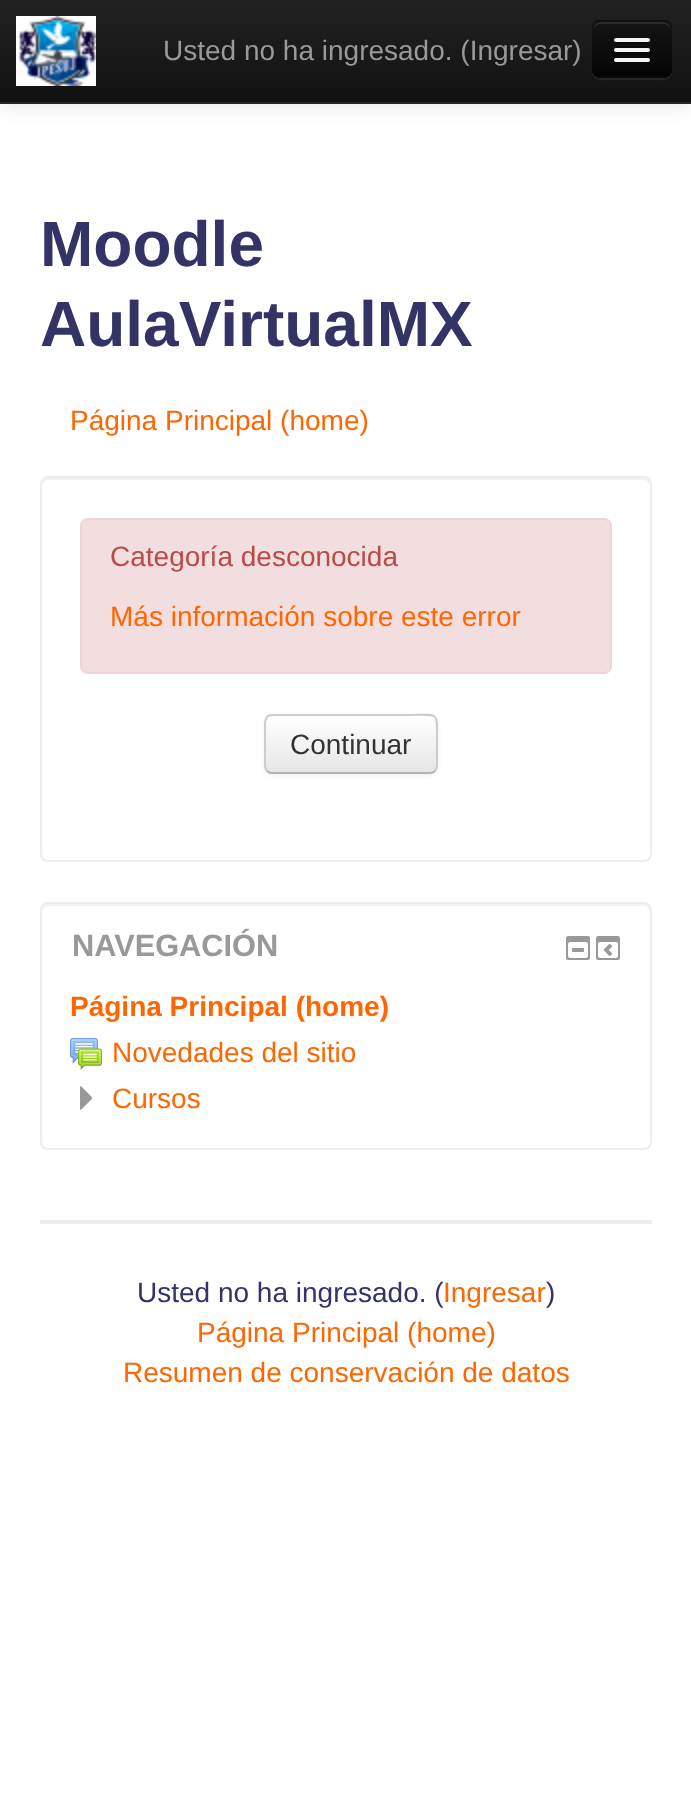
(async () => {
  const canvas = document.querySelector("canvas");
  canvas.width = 691;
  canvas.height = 1805;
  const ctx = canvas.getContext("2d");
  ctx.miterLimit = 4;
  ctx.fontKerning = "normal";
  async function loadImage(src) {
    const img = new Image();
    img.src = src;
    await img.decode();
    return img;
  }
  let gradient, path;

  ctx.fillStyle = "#ffffff";
  ctx.fillRect(0, 0, 691, 1805);
  ctx.fillStyle = "rgba(0, 0, 0, 0.1)";
  ctx.filter = "blur(10px)";
  ctx.beginPath();
  ctx.rect(0, 2, 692, 104);
  ctx.fill();
  ctx.filter = "none";
  gradient = ctx.createLinearGradient(346, 0, 346, 102);
  gradient.addColorStop(0, "#222222");
  gradient.addColorStop(1, "#111111");
  ctx.fillStyle = gradient;
  ctx.fillRect(0, 0, 691, 102);
  ctx.fillStyle = "#252525";
  ctx.fillRect(0, 102, 691, 2);
  ctx.drawImage(await loadImage("img/1.png"), 16, 16, 80, 70);
  ctx.fillStyle = "#272727";
  path = new Path2D("M592 70C592 82 601 80 611 80H653C663 80 672 82 672 70C672 74 668 78 664 78H600C596 78 592 74 592 70Z");
  ctx.fill(path);
  ctx.fillStyle = "#0e0e0e";
  ctx.beginPath();
  ctx.roundRect(592, 20, 80, 58, 8);
  ctx.fill();
  ctx.save();
  ctx.beginPath();
  ctx.roundRect(592, 20, 80, 58, 8);
  ctx.clip();
  gradient = ctx.createLinearGradient(632, 22, 632, 76);
  gradient.addColorStop(0, "#151515");
  gradient.addColorStop(1, "#040404");
  ctx.fillStyle = gradient;
  ctx.fillRect(592, 22, 80, 54);
  ctx.restore();
  ctx.fillStyle = "#2c2c2c";
  path = new Path2D("M600 24H664C667 24 670 27 670 30C670 20 662 22 653 22H611C602 22 594 20 594 30C594 27 597 24 600 24Z");
  ctx.fill(path);
  path = new Path2D("M669 75C667.5 76.5 666 77 664 77H600C598 77 596.5 76.5 595 75");
  ctx.strokeStyle = "rgba(0, 0, 0, 0.25)";
  ctx.lineWidth = 2;
  ctx.stroke(path);
  ctx.fillStyle = "#0b0b0b";
  path = new Path2D("M614.5 41C612 45 621 44 621.5 44H642.5C643 44 652 45 649.5 41C649.5 41.5 648.5 42 648 42H616C615.5 42 614.5 41.5 614.5 41Z");
  ctx.fill(path);
  ctx.fillStyle = "#f5f5f5";
  ctx.beginPath();
  ctx.roundRect(614, 38, 36, 4, 2);
  ctx.fill();
  ctx.fillStyle = "#080808";
  path = new Path2D("M614.5 51C612 55 621 54 621.5 54H642.5C643 54 652 55 649.5 51C649.5 51.5 648.5 52 648 52H616C615.5 52 614.5 51.5 614.5 51Z");
  ctx.fill(path);
  ctx.fillStyle = "#f5f5f5";
  ctx.beginPath();
  ctx.roundRect(614, 48, 36, 4, 2);
  ctx.fill();
  ctx.beginPath();
  ctx.roundRect(614, 58, 36, 4, 2);
  ctx.fill();
  ctx.fillStyle = "#f2f2f2";
  path = new Path2D("M48 480H644C647 480 650 483 650 486V484C650 481 647 478 644 478H48C45 478 42 481 42 484V486C42 483 45 480 48 480Z");
  ctx.fill(path);
  ctx.beginPath();
  ctx.roundRect(41, 477, 610, 384, 7);
  ctx.strokeStyle = "#ededed";
  ctx.stroke();
  ctx.fillStyle = "#f2dede";
  ctx.beginPath();
  ctx.roundRect(81, 519, 530, 154, 7);
  ctx.fill();
  ctx.strokeStyle = "#eed3d7";
  ctx.stroke();
  ctx.fillStyle = "rgba(0, 0, 0, 0.05)";
  ctx.filter = "blur(2px)";
  ctx.beginPath();
  ctx.roundRect(264, 716, 174, 60, 8);
  ctx.fill();
  ctx.filter = "none";
  ctx.fillStyle = "#f5f5f5";
  ctx.beginPath();
  ctx.roundRect(264, 714, 174, 60, 8);
  ctx.fill();
  ctx.save();
  ctx.beginPath();
  ctx.roundRect(264, 714, 174, 60, 8);
  ctx.clip();
  gradient = ctx.createLinearGradient(351, 716, 351, 772);
  gradient.addColorStop(0, "#ffffff");
  gradient.addColorStop(1, "#e6e6e6");
  ctx.fillStyle = gradient;
  ctx.fillRect(264, 716, 174, 56);
  ctx.restore();
  path = new Path2D("M435 771C433.5 772.5 432 773 430 773H272C270 773 268.5 772.5 267 771");
  ctx.strokeStyle = "#b3b3b3";
  ctx.stroke(path);
  path = new Path2D("M267 771C264 768 265 762.5 265 758.5V729.5C265 724 264 715 272 715H403.5C441 715 437 709 437 744V758.5C437 762.5 438 768 435 771");
  ctx.strokeStyle = "#cccccc";
  ctx.stroke(path);
  ctx.fillStyle = "#f2f2f2";
  path = new Path2D("M48 906H644C647 906 650 909 650 912V910C650 907 647 904 644 904H48C45 904 42 907 42 910V912C42 909 45 906 48 906Z");
  ctx.fill(path);
  ctx.beginPath();
  ctx.roundRect(41, 903, 610, 246, 7);
  ctx.strokeStyle = "#ededed";
  ctx.stroke();
  ctx.drawImage(await loadImage("img/2.png"), 566, 936, 24, 24);
  ctx.drawImage(await loadImage("img/3.png"), 596, 936, 24, 24);
  ctx.drawImage(await loadImage("img/4.png"), 70, 1038, 32, 32);
  ctx.drawImage(await loadImage("img/5.png"), 80, 1086, 12, 24);
  ctx.fillStyle = "#ededed";
  ctx.fillRect(40, 1220, 612, 4);
  ctx.font = "28px Liberation Sans";
  ctx.fillStyle = "#999999";
  ctx.fillText("Usted no ha ingresado. (Ingresar)", 163, 60);
  ctx.font = "bold 64px Liberation Sans";
  ctx.fillStyle = "#333366";
  ctx.fillText("Moodle", 40, 266);
  ctx.fillText("AulaVirtualMX", 40, 346);
  ctx.font = "28px Liberation Sans";
  ctx.fillStyle = "#ff6500";
  ctx.fillText("Página Principal (home)", 70, 430);
  ctx.fillStyle = "#b94a48";
  ctx.fillText("Categoría desconocida", 110, 566);
  ctx.fillStyle = "#ff6500";
  ctx.fillText("Más información sobre este error", 110, 626);
  ctx.fillStyle = "#333333";
  ctx.fillText("Continuar", 290, 754);
  ctx.font = "bold 30.75px Liberation Sans";
  ctx.fillStyle = "#999999";
  ctx.fillText("NAVEGACIÓN", 72, 956);
  ctx.font = "bold 28px Liberation Sans";
  ctx.fillStyle = "#ff6500";
  ctx.fillText("Página Principal (home)", 70, 1016);
  ctx.font = "28px Liberation Sans";
  ctx.fillText("Novedades del sitio", 112, 1062);
  ctx.fillText("Cursos", 112, 1108);
  ctx.fillStyle = "#333366";
  ctx.fillText("Usted no ha ingresado. (", 137, 1302);
  ctx.fillStyle = "#ff6500";
  ctx.fillText("Ingresar", 443, 1302);
  ctx.fillStyle = "#333366";
  ctx.fillText(")", 546, 1302);
  ctx.fillStyle = "#ff6500";
  ctx.fillText("Página Principal (home)", 197, 1342);
  ctx.fillText("Resumen de conservación de datos", 123, 1382);
})();
